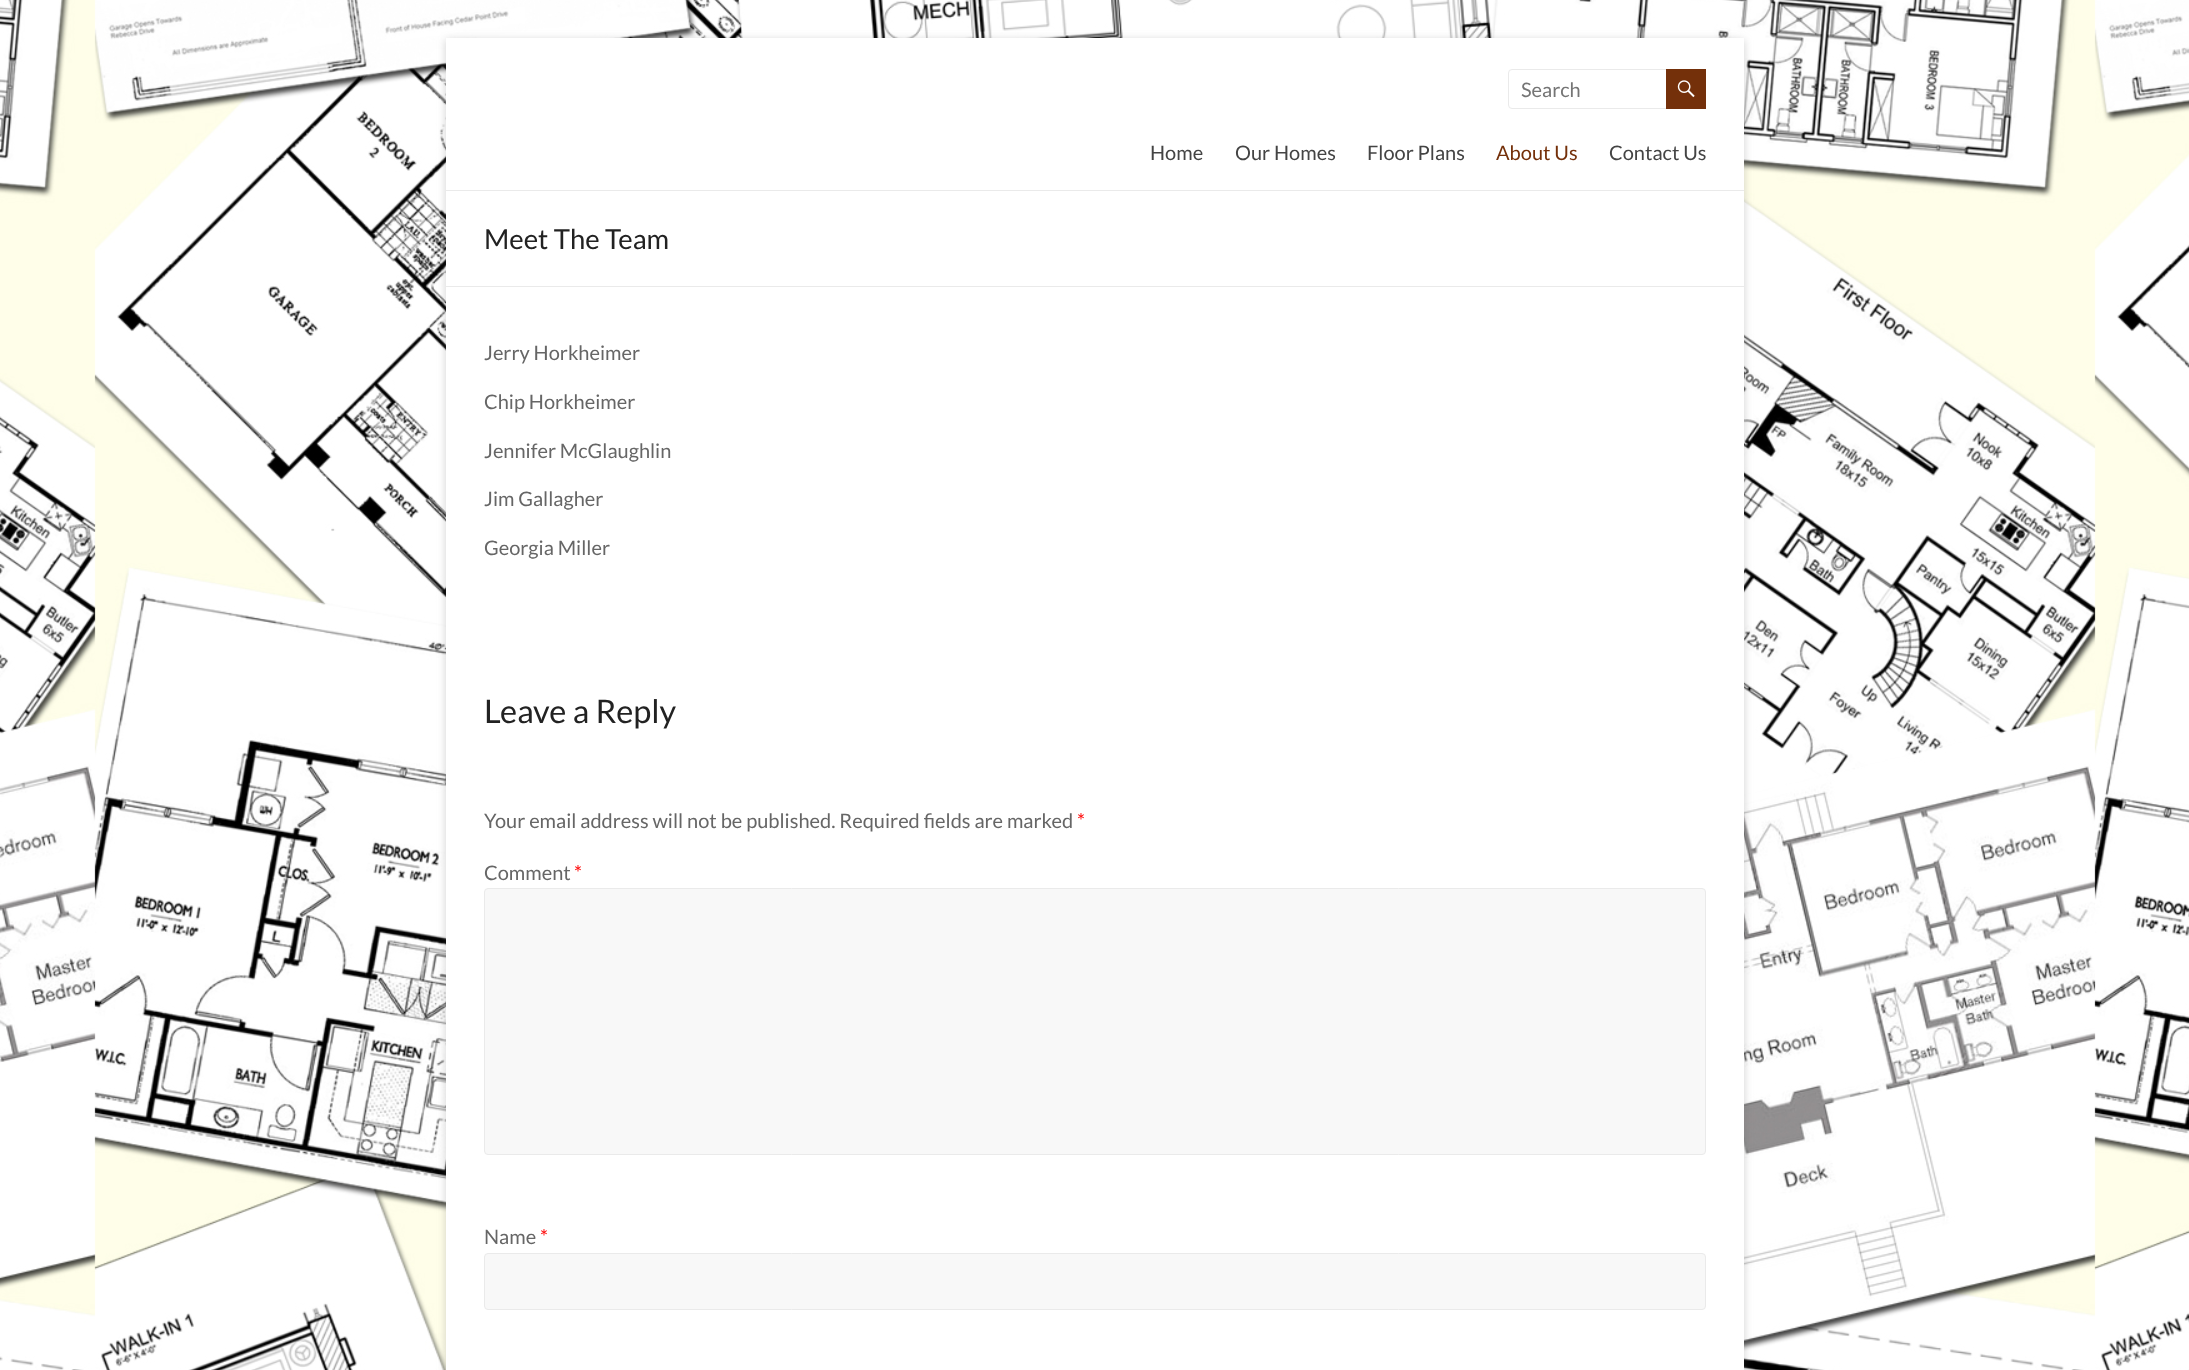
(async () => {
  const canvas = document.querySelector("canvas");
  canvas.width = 2189;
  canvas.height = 1370;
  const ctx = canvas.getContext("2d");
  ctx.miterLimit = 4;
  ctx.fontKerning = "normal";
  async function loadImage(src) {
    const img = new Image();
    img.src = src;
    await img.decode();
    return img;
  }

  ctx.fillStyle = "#ffffff";
  ctx.fillRect(0, 0, 2189, 1370);
  ctx.drawImage(await loadImage("img/1.png"), 0, 0, 2189, 1370);
  ctx.fillStyle = "rgba(100, 100, 100, 0.3)";
  ctx.filter = "blur(4px)";
  ctx.beginPath();
  ctx.rect(446, 40, 1298, 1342);
  ctx.fill();
  ctx.filter = "none";
  ctx.fillStyle = "#ffffff";
  ctx.fillRect(446, 38, 1298, 1332);
  ctx.fillStyle = "#eaeaea";
  ctx.fillRect(446, 190, 1298, 1);
  ctx.beginPath();
  ctx.roundRect(1508.5, 69.5, 161, 39, 3.5);
  ctx.strokeStyle = "#eaeaea";
  ctx.stroke();
  ctx.fillStyle = "#74300a";
  ctx.fillRect(1666, 69, 40, 40);
  ctx.drawImage(await loadImage("img/2.png"), 1677, 80, 18, 18);
  ctx.fillStyle = "#eaeaea";
  ctx.fillRect(446, 286, 1298, 1);
  ctx.fillStyle = "#f8f8f8";
  ctx.beginPath();
  ctx.roundRect(484.5, 888.5, 1221, 266, 3.5);
  ctx.fill();
  ctx.stroke();
  ctx.beginPath();
  ctx.roundRect(484.5, 1253.5, 1221, 56, 3.5);
  ctx.fill();
  ctx.stroke();
  ctx.font = "20px Lato";
  ctx.fillStyle = "#757575";
  ctx.fillText("Search", 1521, 97);
  ctx.fillStyle = "#444444";
  for (const [text, x, y] of [
    ["Home", 1150, 160],
    ["Our Homes", 1235, 160],
    ["Floor Plans", 1367, 160],
  ]) {
    ctx.fillText(text, x, y);
  }
  ctx.fillStyle = "#74300a";
  ctx.fillText("About Us", 1496, 160);
  ctx.fillStyle = "#444444";
  ctx.fillText("Contact Us", 1609, 160);
  ctx.font = "27.5px Lato";
  ctx.fillStyle = "#222222";
  ctx.fillText("Meet The Team", 484, 249);
  ctx.font = "20px Lato";
  ctx.fillStyle = "#666666";
  for (const [text, x, y] of [
    ["Jerry Horkheimer", 484, 360],
    ["Chip Horkheimer", 484, 409],
    ["Jennifer McGlaughlin", 484, 458],
    ["Jim Gallagher", 484, 506],
    ["Georgia Miller", 484, 555],
  ]) {
    ctx.fillText(text, x, y);
  }
  ctx.font = "32.5px Lato";
  ctx.fillStyle = "#222222";
  ctx.fillText("Leave a Reply", 484, 723);
  ctx.font = "20px Lato";
  ctx.fillStyle = "#666666";
  ctx.fillText("Your email address will not be published. Required fields are marked", 484, 828);
  ctx.fillStyle = "#ff0000";
  ctx.fillText("*", 1077, 828);
  ctx.fillStyle = "#666666";
  ctx.fillText("Comment", 484, 880);
  ctx.fillStyle = "#ff0000";
  ctx.fillText("*", 574, 880);
  ctx.fillStyle = "#666666";
  ctx.fillText("Name", 484, 1244);
  ctx.fillStyle = "#ff0000";
  ctx.fillText("*", 540, 1244);
})();
